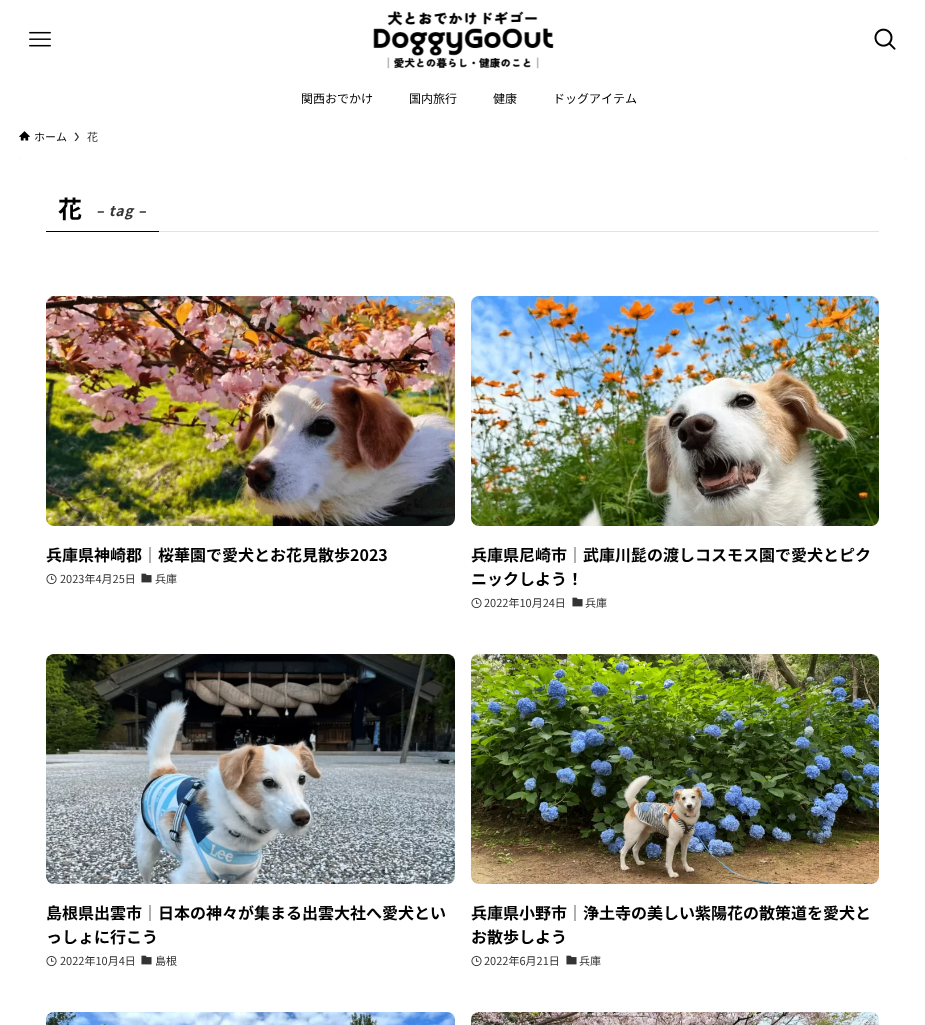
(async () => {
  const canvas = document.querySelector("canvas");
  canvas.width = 925;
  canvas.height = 1025;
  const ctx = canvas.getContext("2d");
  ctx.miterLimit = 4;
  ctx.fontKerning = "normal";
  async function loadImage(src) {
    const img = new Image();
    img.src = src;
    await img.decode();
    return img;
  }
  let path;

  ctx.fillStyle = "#ffffff";
  ctx.fillRect(0, 0, 925, 1025);
  ctx.drawImage(await loadImage("img/1.png"), 29, 31, 22, 16);
  ctx.drawImage(await loadImage("img/2.png"), 373, 11, 181, 58);
  ctx.drawImage(await loadImage("img/3.png"), 874, 28, 22, 22);
  ctx.drawImage(await loadImage("img/4.png"), 19, 131, 11, 10);
  ctx.fillStyle = "#333333";
  path = new Path2D("M76 132.5L74.5 133L77.5 137L74.5 141H76L79 137Z");
  ctx.fill(path);
  ctx.fillStyle = "rgba(0, 0, 0, 0.12)";
  ctx.filter = "blur(0.5px)";
  ctx.beginPath();
  ctx.roundRect(19, 158, 888, 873, 4);
  ctx.fill();
  ctx.filter = "none";
  ctx.fillStyle = "#ffffff";
  ctx.beginPath();
  ctx.roundRect(19, 158, 888, 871, 4);
  ctx.fill();
  ctx.fillStyle = "#e3e3e3";
  ctx.fillRect(159, 231, 720, 1);
  ctx.fillStyle = "#000000";
  ctx.fillRect(46, 231, 113, 1);
  ctx.drawImage(await loadImage("img/5.png"), 46, 296, 409, 230);
  ctx.drawImage(await loadImage("img/6.png"), 46, 574, 11, 11);
  ctx.drawImage(await loadImage("img/7.png"), 141, 573, 11, 10);
  ctx.drawImage(await loadImage("img/8.png"), 471, 296, 408, 230);
  ctx.drawImage(await loadImage("img/6.png"), 471, 598, 11, 11);
  ctx.drawImage(await loadImage("img/7.png"), 572, 597, 11, 10);
  ctx.drawImage(await loadImage("img/9.png"), 46, 654, 409, 230);
  ctx.drawImage(await loadImage("img/6.png"), 46, 956, 11, 11);
  ctx.drawImage(await loadImage("img/7.png"), 141, 955, 11, 10);
  ctx.drawImage(await loadImage("img/10.png"), 471, 654, 408, 230);
  ctx.drawImage(await loadImage("img/6.png"), 471, 956, 11, 11);
  ctx.drawImage(await loadImage("img/7.png"), 566, 955, 11, 10);
  ctx.drawImage(await loadImage("img/11.png"), 46, 1012, 409, 13);
  ctx.drawImage(await loadImage("img/12.png"), 471, 1012, 408, 13);
  ctx.font = "12px Noto Sans JP";
  for (const [text, x, y] of [
    ["関西おでかけ", 301, 103],
    ["国内旅行", 409, 103],
    ["健康", 493, 103],
    ["ドッグアイテム", 553, 103],
  ]) {
    ctx.fillText(text, x, y);
  }
  ctx.font = "11px Noto Sans JP";
  ctx.fillText("ホーム", 34, 141);
  ctx.fillStyle = "#333333";
  ctx.fillText("花", 87, 141);
  ctx.font = "bold 24px Noto Sans JP";
  ctx.fillStyle = "#000000";
  ctx.fillText("花", 58, 218);
  ctx.letterSpacing = "1px";
  ctx.font = "italic bold 14px Noto Sans JP";
  ctx.fillStyle = "#333333";
  ctx.fillText("– tag –", 96, 216);
  ctx.letterSpacing = "0px";
  ctx.font = "bold 16px Noto Sans JP";
  ctx.fillStyle = "#000000";
  ctx.fillText("兵庫県神崎郡│桜華園で愛犬とお花見散歩2023", 46, 561);
  ctx.font = "11px Noto Sans JP";
  ctx.fillStyle = "#333333";
  ctx.fillText("2023年4月25日", 60, 583);
  ctx.fillText("兵庫", 155, 583);
  ctx.font = "bold 16px Noto Sans JP";
  ctx.fillStyle = "#000000";
  ctx.fillText("兵庫県尼崎市│武庫川髭の渡しコスモス園で愛犬とピク", 471, 561);
  ctx.fillText("ニックしよう！", 471, 585);
  ctx.font = "11px Noto Sans JP";
  ctx.fillStyle = "#333333";
  ctx.fillText("2022年10月24日", 484, 607);
  ctx.fillText("兵庫", 585, 607);
  ctx.font = "bold 16px Noto Sans JP";
  ctx.fillStyle = "#000000";
  ctx.fillText("島根県出雲市│日本の神々が集まる出雲大社へ愛犬とい", 46, 919);
  ctx.fillText("っしょに行こう", 46, 943);
  ctx.font = "11px Noto Sans JP";
  ctx.fillStyle = "#333333";
  ctx.fillText("2022年10月4日", 60, 965);
  ctx.fillText("島根", 155, 965);
  ctx.font = "bold 16px Noto Sans JP";
  ctx.fillStyle = "#000000";
  ctx.fillText("兵庫県小野市│浄土寺の美しい紫陽花の散策道を愛犬と", 471, 919);
  ctx.fillText("お散歩しよう", 471, 943);
  ctx.font = "11px Noto Sans JP";
  ctx.fillStyle = "#333333";
  ctx.fillText("2022年6月21日", 484, 965);
  ctx.fillText("兵庫", 579, 965);
})();
